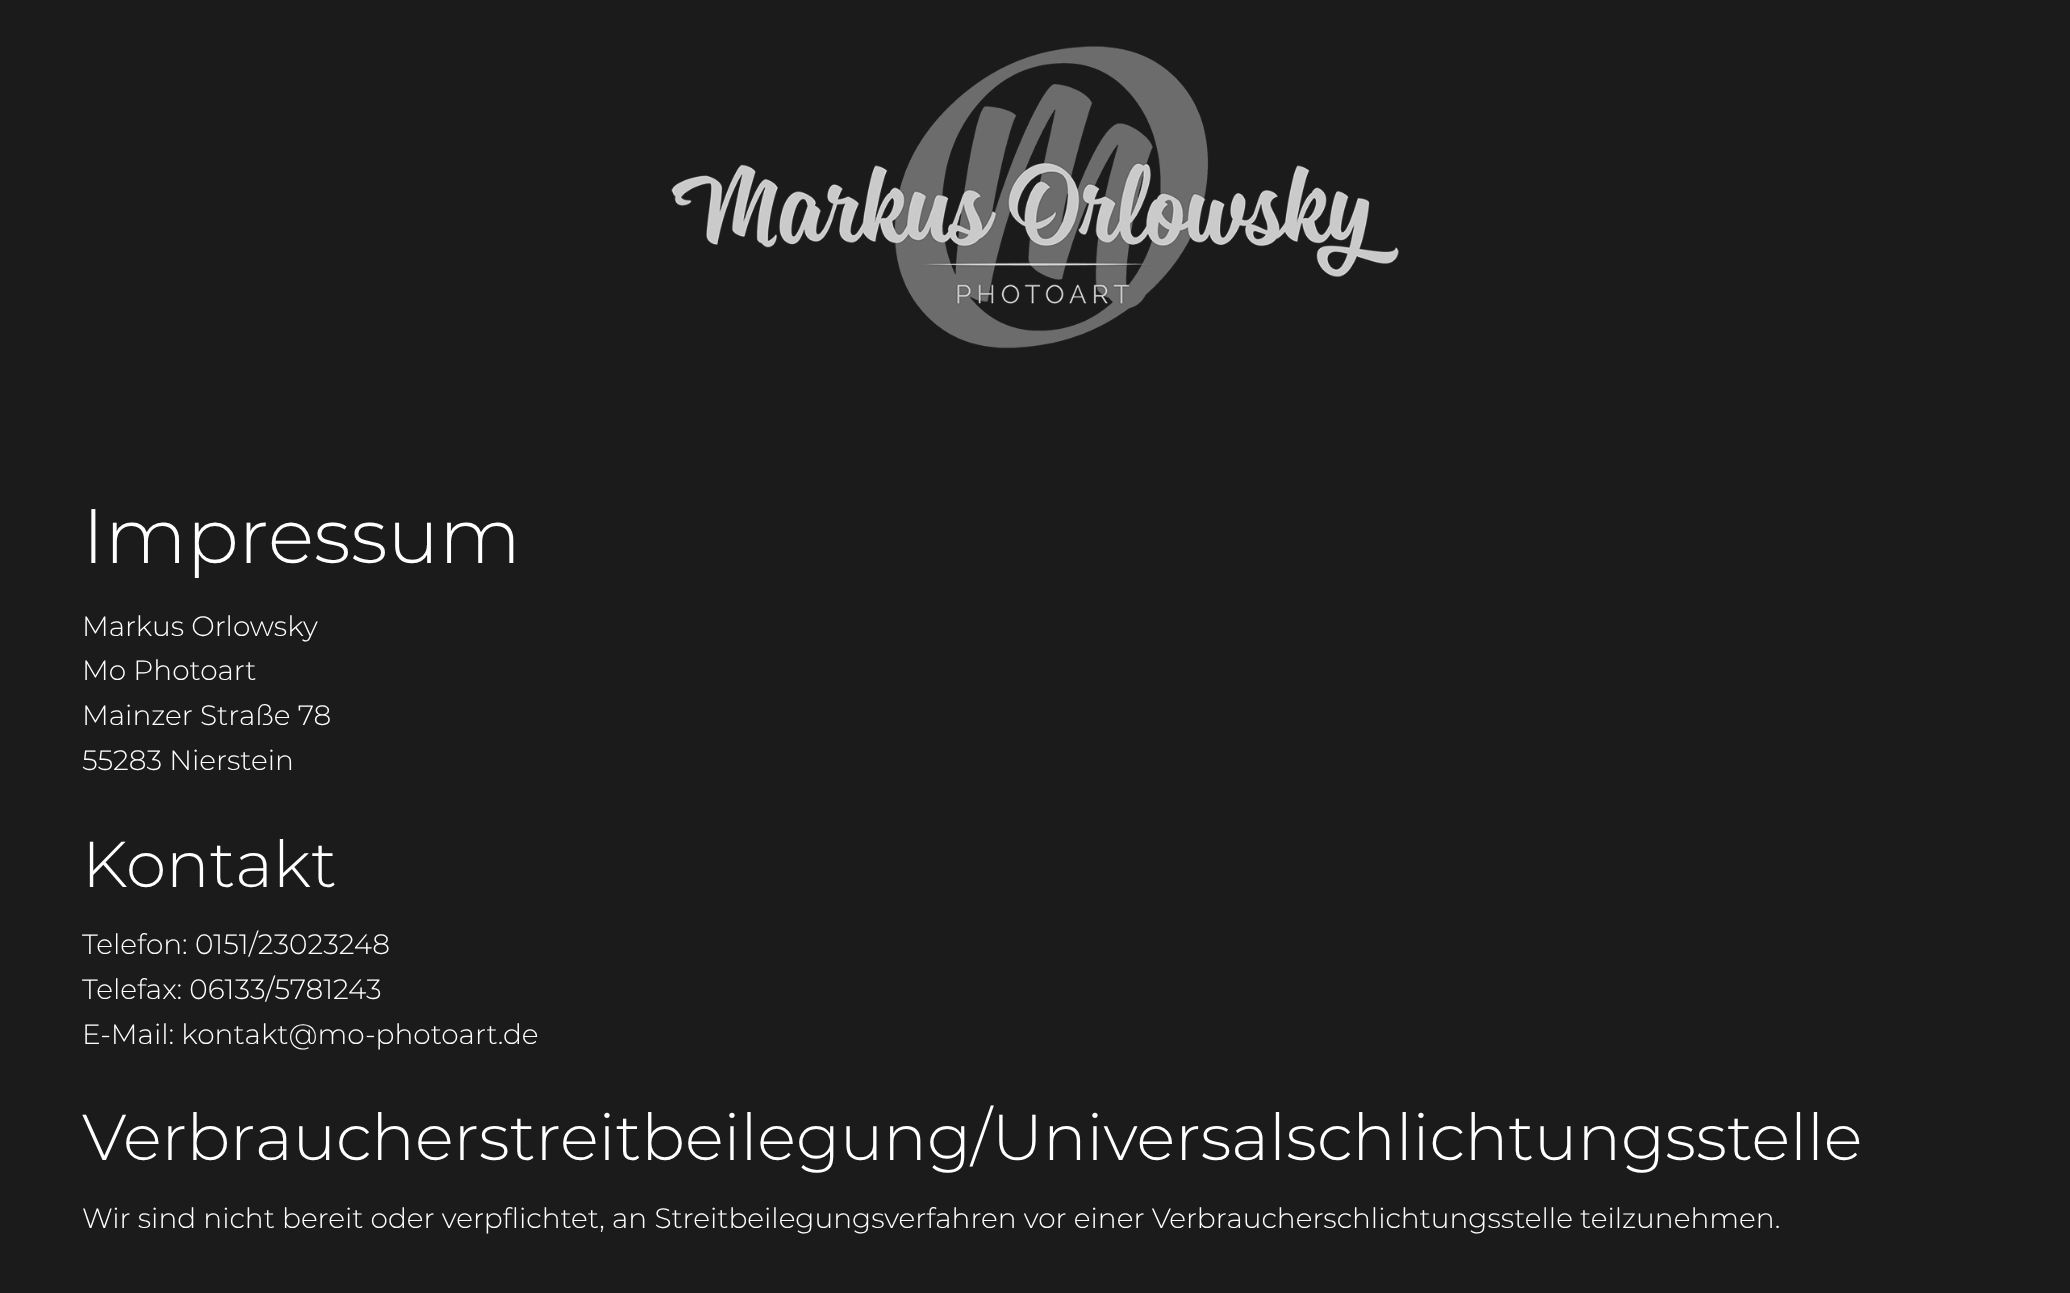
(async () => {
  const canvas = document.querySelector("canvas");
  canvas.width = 2070;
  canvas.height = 1293;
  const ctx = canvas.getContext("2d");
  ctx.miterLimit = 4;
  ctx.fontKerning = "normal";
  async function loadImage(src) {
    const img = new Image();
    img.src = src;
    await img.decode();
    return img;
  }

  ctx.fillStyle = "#1b1b1b";
  ctx.fillRect(0, 0, 2070, 1293);
  ctx.drawImage(await loadImage("img/1.png"), 671, 46, 728, 303);
  ctx.font = "300 77px Montserrat";
  ctx.fillStyle = "#ffffff";
  ctx.fillText("Impressum", 82, 563);
  ctx.font = "300 28px Montserrat";
  for (const [text, x, y] of [
    ["Markus Orlowsky", 82, 636],
    ["Mo Photoart", 82, 680],
    ["Mainzer Straße 78", 82, 725],
    ["55283 Nierstein", 82, 770],
  ]) {
    ctx.fillText(text, x, y);
  }
  ctx.font = "300 64.7px Montserrat";
  ctx.fillText("Kontakt", 82, 887);
  ctx.font = "300 28px Montserrat";
  for (const [text, x, y] of [
    ["Telefon: 0151/23023248", 82, 954],
    ["Telefax: 06133/5781243", 82, 999],
    ["E-Mail: kontakt@mo-photoart.de", 82, 1044],
  ]) {
    ctx.fillText(text, x, y);
  }
  ctx.font = "300 64.7px Montserrat";
  ctx.fillText("Verbraucherstreitbeilegung/Universalschlichtungsstelle", 82, 1160);
  ctx.font = "300 28px Montserrat";
  ctx.fillText("Wir sind nicht bereit oder verpflichtet, an Streitbeilegungsverfahren vor einer Verbraucherschlichtungsstelle teilzunehmen.", 82, 1228);
})();
